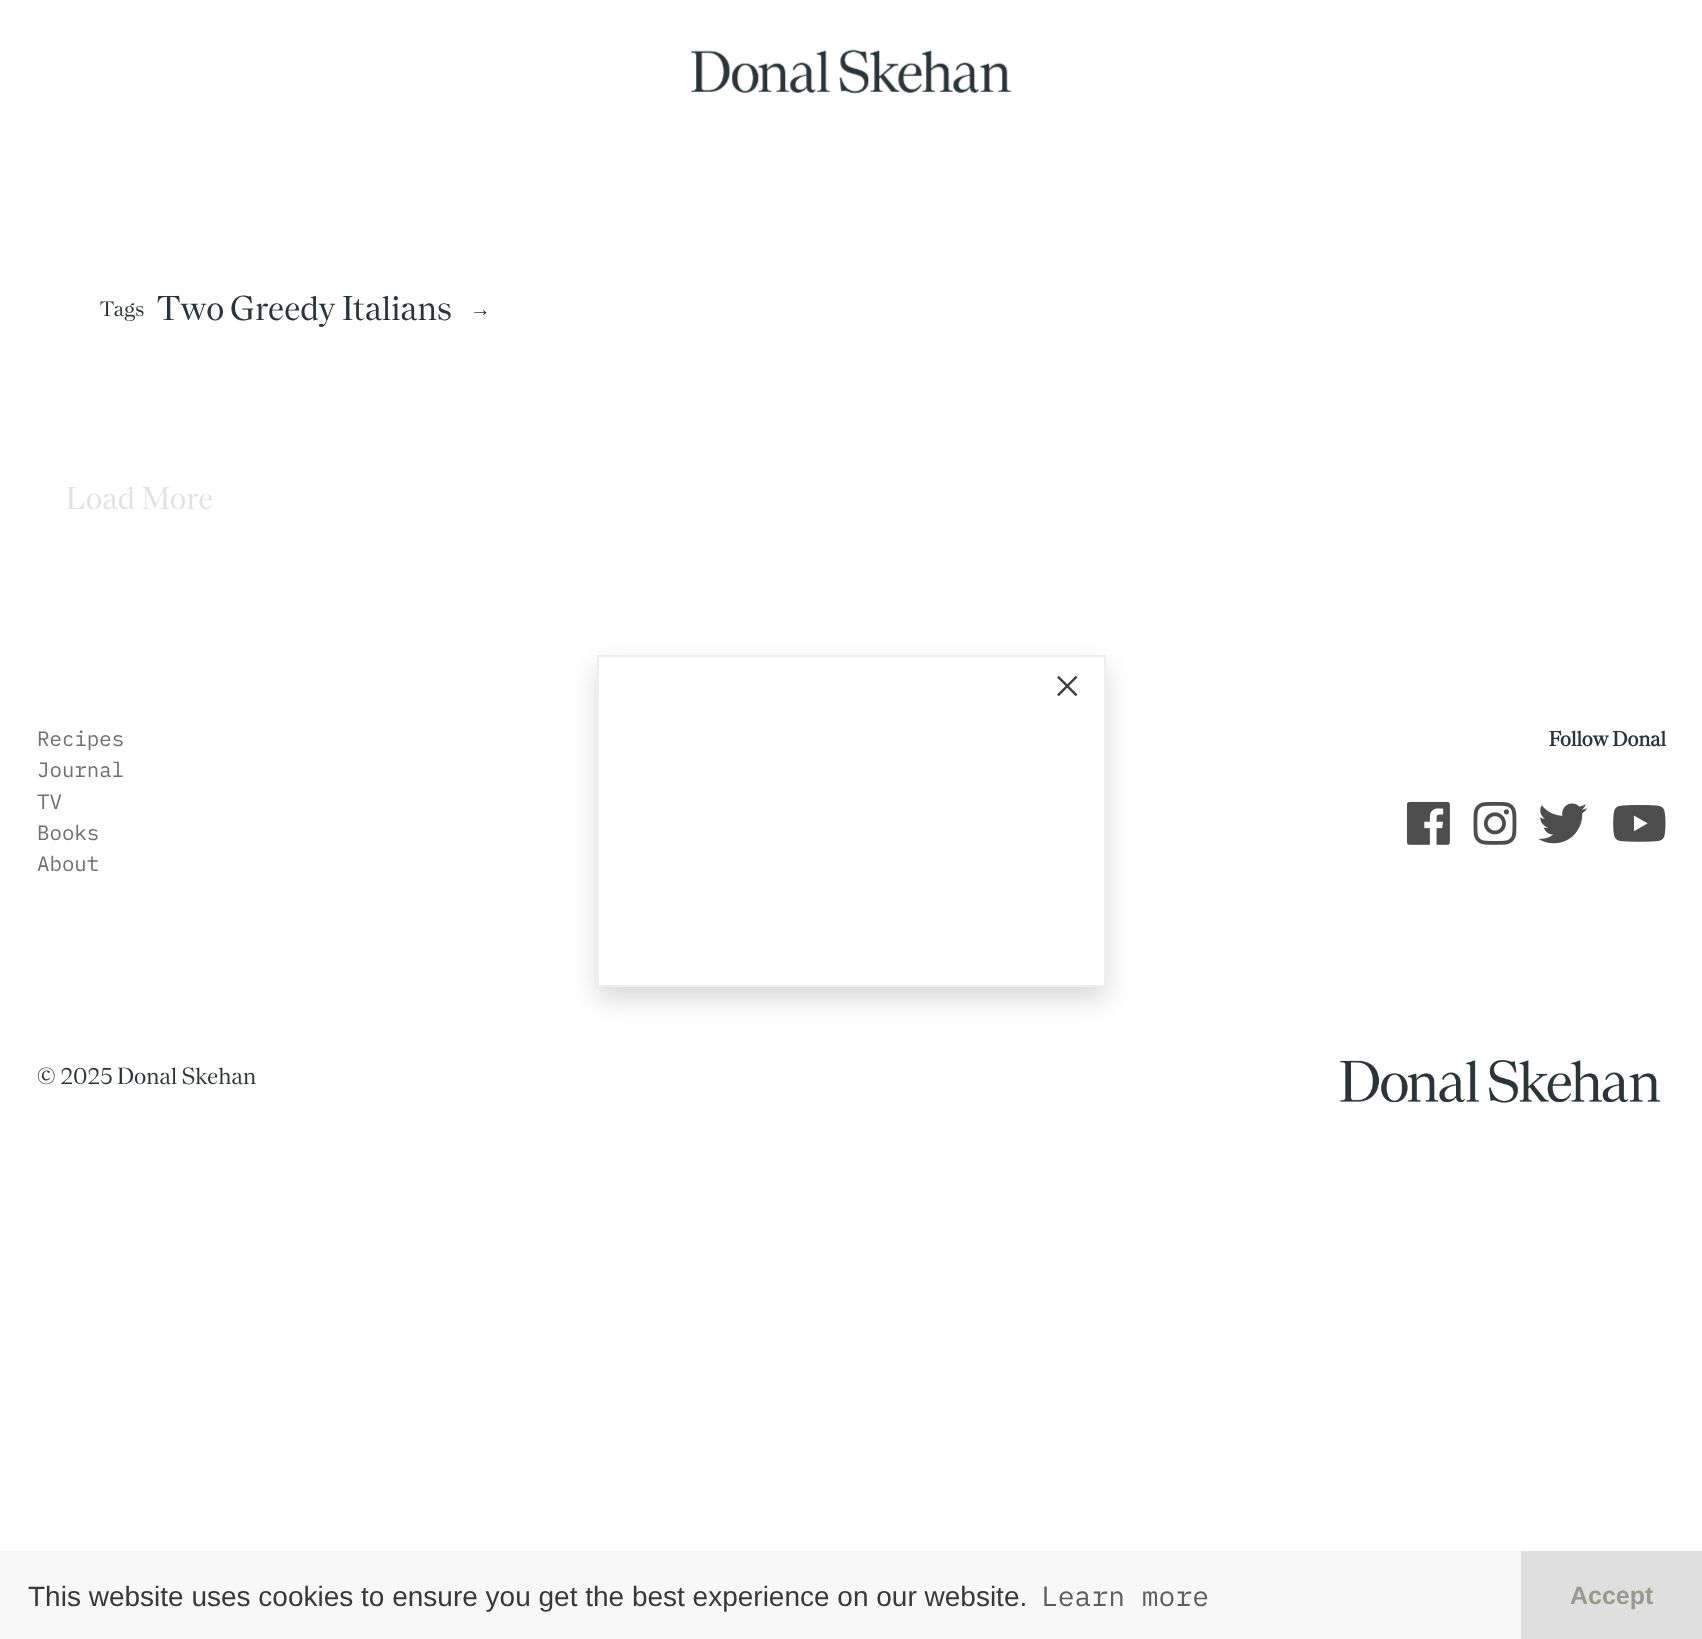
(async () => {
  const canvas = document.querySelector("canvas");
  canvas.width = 1702;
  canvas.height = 1639;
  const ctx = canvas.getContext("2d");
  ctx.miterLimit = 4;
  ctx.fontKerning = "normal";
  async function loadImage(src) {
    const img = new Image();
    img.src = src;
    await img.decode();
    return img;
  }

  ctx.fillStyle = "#ffffff";
  ctx.fillRect(0, 0, 1702, 1639);
  ctx.drawImage(await loadImage("img/1.png"), 691, 49, 321, 45);
  ctx.drawImage(await loadImage("img/2.png"), 1407, 801, 43, 44);
  ctx.drawImage(await loadImage("img/3.png"), 1473, 801, 44, 44);
  ctx.drawImage(await loadImage("img/4.png"), 1538, 803, 50, 41);
  ctx.drawImage(await loadImage("img/5.png"), 1613, 805, 53, 37);
  ctx.drawImage(await loadImage("img/6.png"), 1340, 1060, 321, 43);
  ctx.fillStyle = "rgba(0, 0, 0, 0.15)";
  ctx.filter = "blur(12px)";
  ctx.beginPath();
  ctx.rect(597, 667, 509, 332);
  ctx.fill();
  ctx.filter = "none";
  ctx.fillStyle = "#ffffff";
  ctx.beginPath();
  ctx.rect(598, 656, 507, 330);
  ctx.fill();
  ctx.strokeStyle = "#eeeeee";
  ctx.lineWidth = 2;
  ctx.stroke();
  ctx.fillStyle = "#f8f8f8";
  ctx.fillRect(0, 1551, 1521, 88);
  ctx.fillStyle = "#dfdfdf";
  ctx.fillRect(1521, 1551, 181, 88);
  ctx.font = "20.75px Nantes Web";
  ctx.fillStyle = "#2d333a";
  ctx.fillText("Tags", 100, 316);
  ctx.font = "34.25px Nantes Web";
  ctx.fillText("Two Greedy Italians", 157, 320);
  ctx.font = "20.75px Liberation Serif";
  ctx.fillText("→", 470, 316);
  ctx.font = "31.5px Nantes Web";
  ctx.fillStyle = "#e2e2e2";
  ctx.fillText("Load More", 66, 509);
  ctx.font = "20.75px IBM Plex Mono";
  ctx.fillStyle = "#707070";
  for (const [text, x, y] of [
    ["Recipes", 37, 746],
    ["Journal", 37, 777],
    ["TV", 37, 809],
    ["Books", 37, 840],
    ["About", 37, 871],
  ]) {
    ctx.fillText(text, x, y);
  }
  ctx.font = "bold 20.75px Nantes Web";
  ctx.fillStyle = "#2d333a";
  ctx.fillText("Follow Donal", 1549, 746);
  ctx.font = "23.25px Nantes Web";
  ctx.fillText("© 2025 Donal Skehan", 37, 1084);
  ctx.font = "56px Nantes Web";
  ctx.fillStyle = "#3f3f3f";
  ctx.fillText("×", 1054, 702);
  ctx.font = "28px Liberation Sans";
  ctx.fillStyle = "#383839";
  ctx.fillText("This website uses cookies to ensure you get the best experience on our website.", 28, 1606);
  ctx.font = "28px IBM Plex Mono";
  ctx.fillStyle = "#5e5e5f";
  ctx.fillText("Learn more", 1041, 1606);
  ctx.font = "bold 25px Liberation Sans";
  ctx.fillStyle = "#9a998f";
  ctx.fillText("Accept", 1570, 1604);
})();
